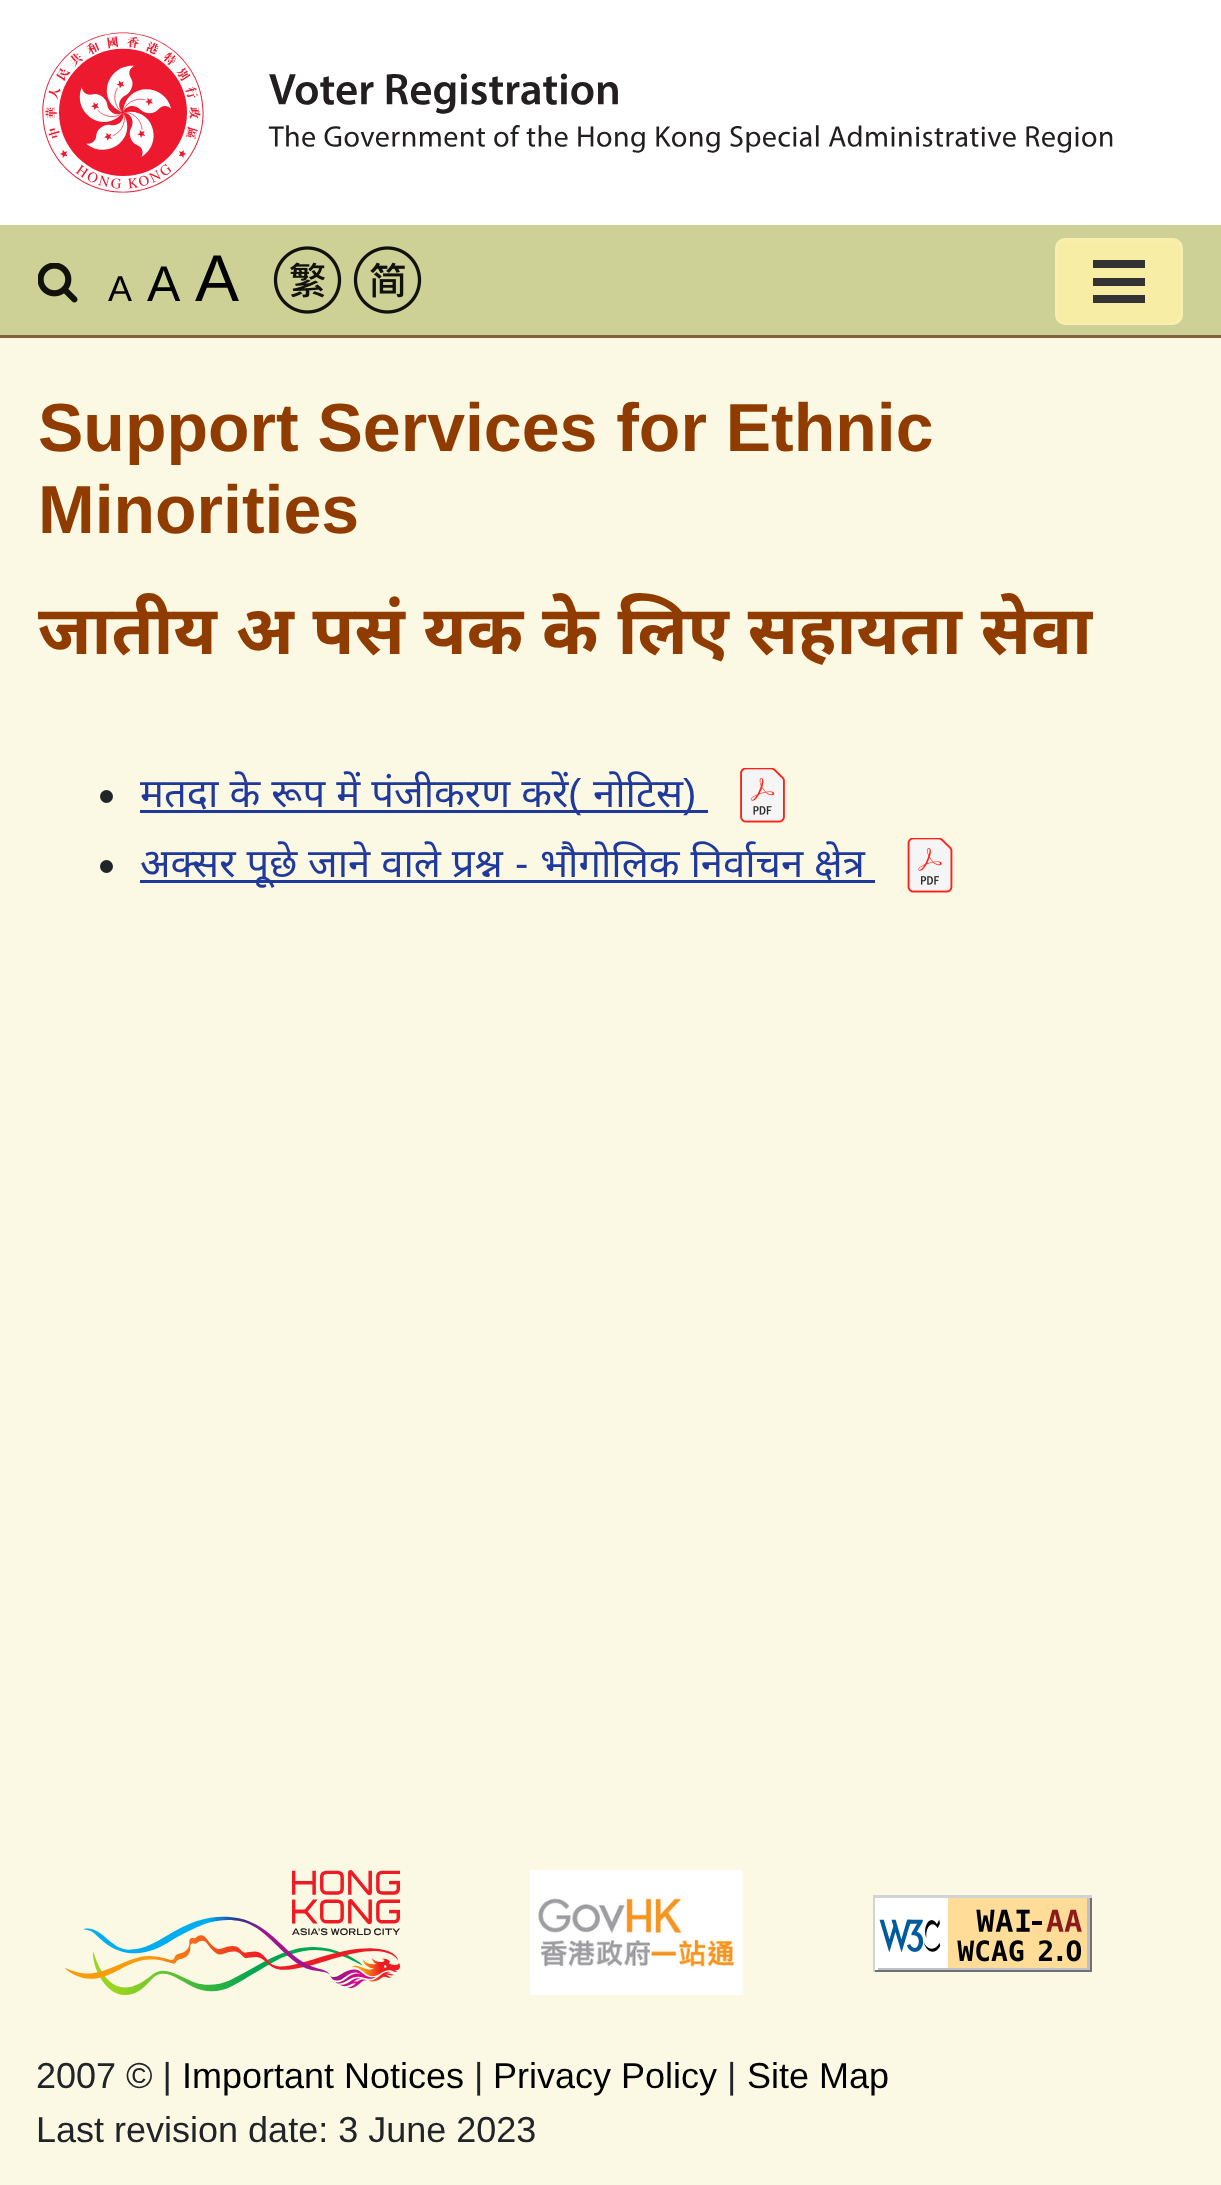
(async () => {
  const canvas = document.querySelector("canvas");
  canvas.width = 1221;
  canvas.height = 2185;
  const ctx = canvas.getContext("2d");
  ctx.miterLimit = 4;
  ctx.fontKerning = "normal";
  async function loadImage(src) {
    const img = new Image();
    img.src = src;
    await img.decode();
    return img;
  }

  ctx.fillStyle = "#fbf8e3";
  ctx.fillRect(0, 0, 1221, 2185);
  ctx.fillStyle = "#ffffff";
  ctx.fillRect(0, 0, 1221, 225);
  ctx.drawImage(await loadImage("img/1.png"), 42, 32, 1071, 161);
  ctx.fillStyle = "#cdd195";
  ctx.fillRect(0, 225, 1221, 110);
  ctx.fillStyle = "#85603d";
  ctx.fillRect(0, 335, 1221, 3);
  ctx.drawImage(await loadImage("img/2.png"), 38, 263, 40, 40);
  ctx.drawImage(await loadImage("img/3.png"), 273, 246, 69, 68);
  ctx.drawImage(await loadImage("img/4.png"), 353, 246, 69, 68);
  ctx.fillStyle = "#f8eda4";
  ctx.beginPath();
  ctx.roundRect(1055, 238, 128, 87, 10);
  ctx.fill();
  ctx.beginPath();
  ctx.roundRect(1056.5, 239.5, 125, 84, 8.5);
  ctx.strokeStyle = "rgba(255, 255, 255, 0.1)";
  ctx.lineWidth = 3;
  ctx.stroke();
  for (const [x, y, w, h, color] of [
    [1093, 260, 52, 8, "#333333"],
    [1093, 278, 52, 8, "#333333"],
    [1093, 295, 52, 8, "#333333"],
  ]) {
    ctx.fillStyle = color;
    ctx.fillRect(x, y, w, h);
  }
  ctx.fillStyle = "#212529";
  ctx.beginPath();
  ctx.arc(106.5, 796.5, 6.5, 0, Math.PI * 2);
  ctx.fill();
  ctx.fillStyle = "#20399d";
  ctx.fillRect(140, 810, 568, 3);
  ctx.drawImage(await loadImage("img/5.png"), 740, 768, 45, 55);
  ctx.fillStyle = "#212529";
  ctx.beginPath();
  ctx.arc(106.5, 866.5, 6.5, 0, Math.PI * 2);
  ctx.fill();
  ctx.fillStyle = "#20399d";
  ctx.fillRect(140, 880, 725, 3);
  ctx.fillRect(865, 880, 10, 3);
  ctx.drawImage(await loadImage("img/6.png"), 907, 838, 46, 55);
  ctx.drawImage(await loadImage("img/7.png"), 65, 1870, 335, 125);
  ctx.drawImage(await loadImage("img/8.png"), 530, 1870, 213, 125);
  ctx.drawImage(await loadImage("img/9.png"), 873, 1895, 219, 77);
  ctx.font = "36px Liberation Sans";
  ctx.fillStyle = "#000000";
  ctx.fillText("A", 108, 301);
  ctx.font = "50px Liberation Sans";
  ctx.fillText("A", 147, 301);
  ctx.font = "66px Liberation Sans";
  ctx.fillText("A", 195, 301);
  ctx.font = "bold 68px Liberation Sans";
  ctx.fillStyle = "#903c00";
  ctx.fillText("Support Services for Ethnic", 38, 451);
  ctx.fillText("Minorities", 38, 533);
  ctx.wordSpacing = "1.25px";
  ctx.font = "bold 68px Noto Sans";
  ctx.fillText("जातीय अ पसं यक के लिए सहायता सेवा", 38, 654);
  ctx.wordSpacing = "0.75px";
  ctx.font = "40px Noto Sans";
  ctx.fillStyle = "#20399d";
  ctx.fillText("मतदा के रूप में पंजीकरण करें", 140, 807);
  ctx.wordSpacing = "0px";
  ctx.font = "40px Liberation Sans";
  ctx.fillText("(", 568, 807);
  ctx.font = "40px Noto Sans";
  ctx.fillText("नोटिस", 593, 807);
  ctx.font = "40px Liberation Sans";
  ctx.fillText(")", 683, 807);
  ctx.wordSpacing = "0.5px";
  ctx.font = "40px Noto Sans";
  ctx.fillText("अक्सर पूछे जाने वाले प्रश्न", 140, 877);
  ctx.wordSpacing = "0px";
  ctx.font = "40px Liberation Sans";
  ctx.fillText("-", 515, 877);
  ctx.wordSpacing = "0.5px";
  ctx.font = "40px Noto Sans";
  ctx.fillText("भौगोलिक निर्वाचन क्षेत्र", 540, 877);
  ctx.wordSpacing = "0px";
  ctx.font = "36px Liberation Sans";
  ctx.fillStyle = "#212529";
  ctx.fillText("2007 © |", 36, 2088);
  ctx.fillStyle = "#000000";
  ctx.fillText("Important Notices", 182, 2088);
  ctx.fillStyle = "#212529";
  ctx.fillText("|", 474, 2088);
  ctx.fillStyle = "#000000";
  ctx.fillText("Privacy Policy", 493, 2088);
  ctx.fillStyle = "#212529";
  ctx.fillText("|", 727, 2088);
  ctx.fillStyle = "#000000";
  ctx.fillText("Site Map", 747, 2088);
  ctx.fillStyle = "#212529";
  ctx.fillText("Last revision date: 3 June 2023", 36, 2142);
})();
